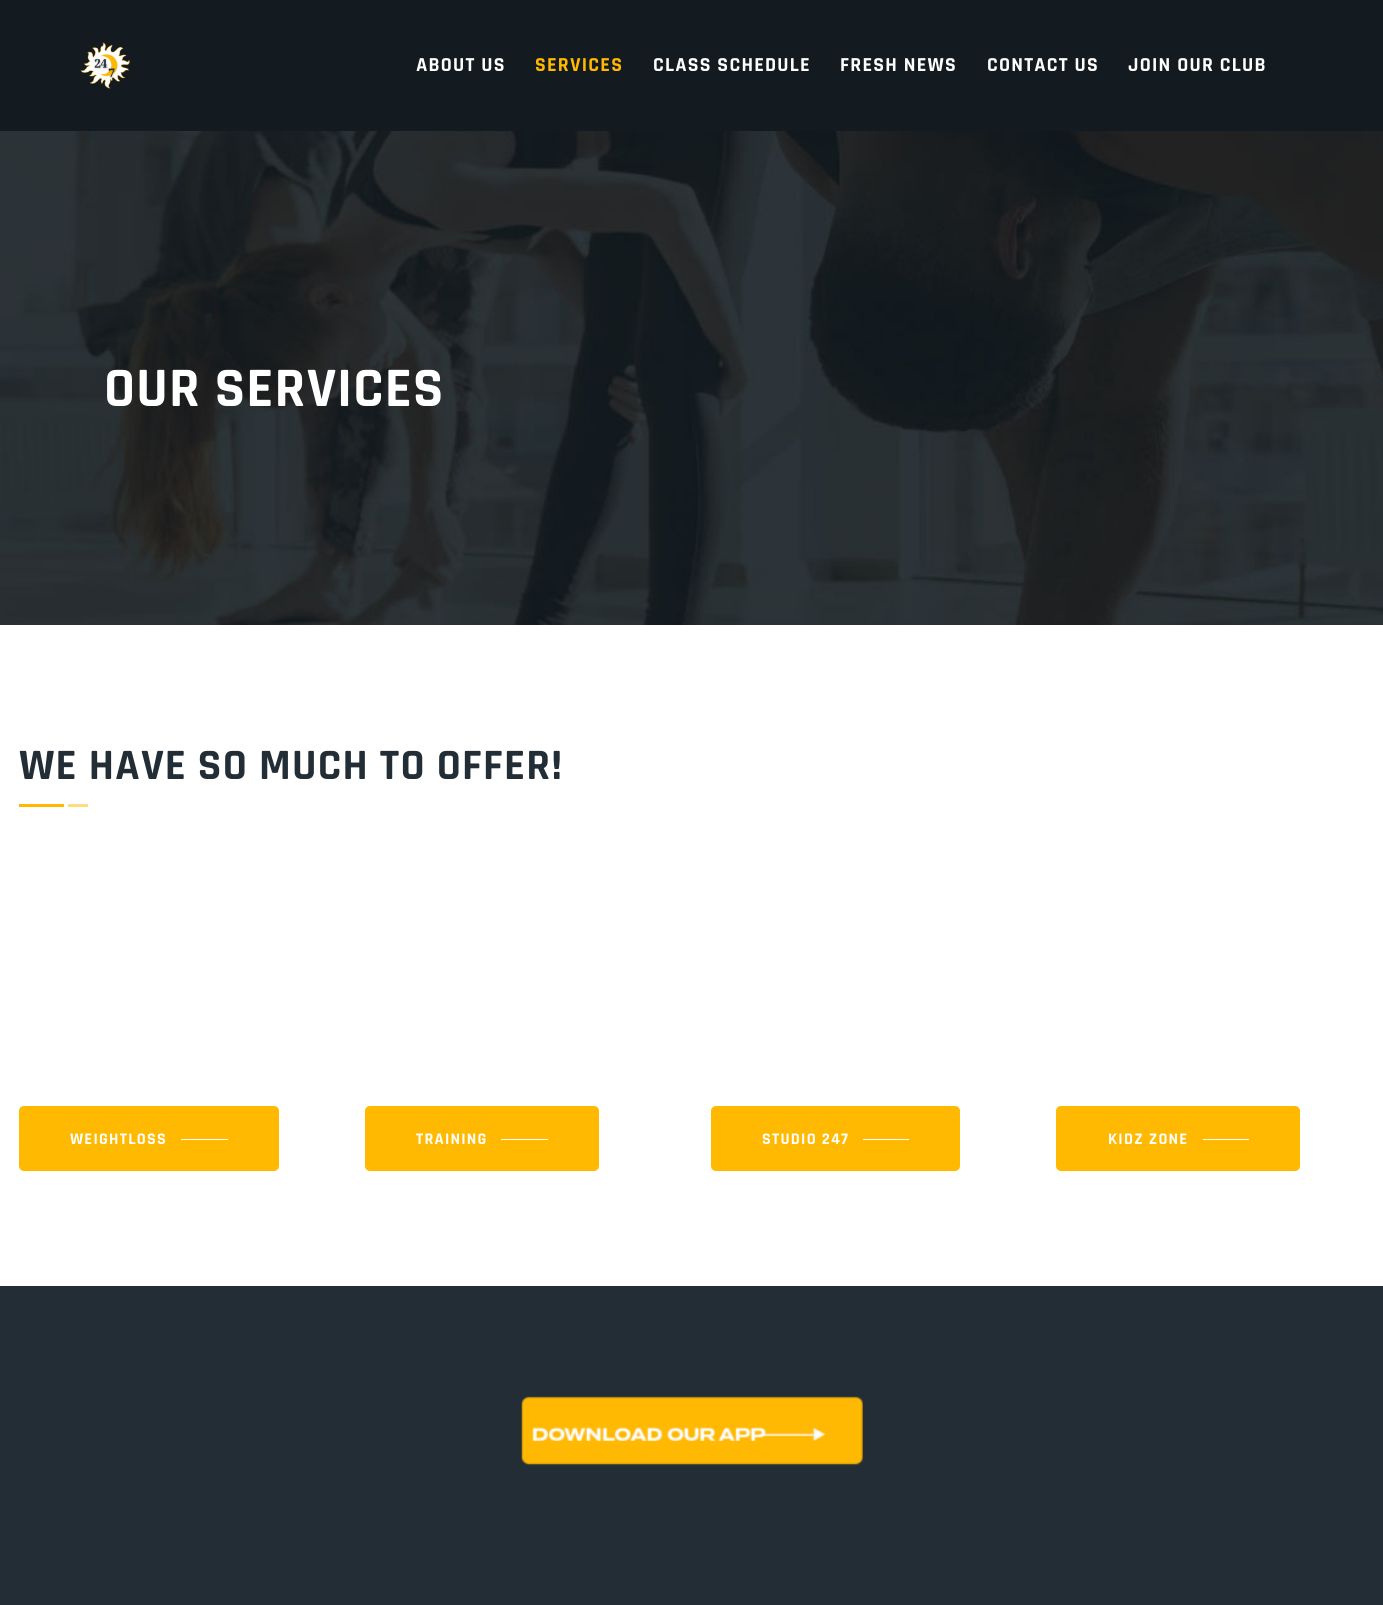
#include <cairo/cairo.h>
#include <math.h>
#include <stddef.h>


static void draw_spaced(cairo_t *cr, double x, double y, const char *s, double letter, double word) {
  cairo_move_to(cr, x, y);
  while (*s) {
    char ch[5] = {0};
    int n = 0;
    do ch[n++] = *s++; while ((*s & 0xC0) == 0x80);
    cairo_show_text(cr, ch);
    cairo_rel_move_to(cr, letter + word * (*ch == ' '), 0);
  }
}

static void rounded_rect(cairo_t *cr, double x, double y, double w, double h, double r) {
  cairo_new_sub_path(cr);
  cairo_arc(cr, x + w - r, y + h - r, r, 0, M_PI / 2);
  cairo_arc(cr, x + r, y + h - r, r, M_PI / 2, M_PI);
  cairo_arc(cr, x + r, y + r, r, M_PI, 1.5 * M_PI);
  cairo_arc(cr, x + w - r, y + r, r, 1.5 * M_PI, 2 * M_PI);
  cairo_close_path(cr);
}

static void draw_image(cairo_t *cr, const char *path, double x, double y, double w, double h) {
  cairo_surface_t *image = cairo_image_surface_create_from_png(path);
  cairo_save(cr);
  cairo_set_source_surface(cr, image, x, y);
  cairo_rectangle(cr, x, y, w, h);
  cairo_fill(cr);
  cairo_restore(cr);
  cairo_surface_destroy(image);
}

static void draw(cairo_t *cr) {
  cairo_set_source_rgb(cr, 1, 1, 1);
  cairo_paint(cr);
  cairo_set_source_rgb(cr, 20 / 255.0, 27 / 255.0, 32 / 255.0);
  cairo_rectangle(cr, 0, 0, 1383, 131);
  cairo_fill(cr);
  draw_image(cr, "images/1.png", 80, 42, 50, 47);
  draw_image(cr, "images/2.png", 0, 131, 1383, 494);
  cairo_set_source_rgb(cr, 1, 185 / 255.0, 1 / 255.0);
  cairo_rectangle(cr, 19, 804, 45, 3);
  cairo_fill(cr);
  cairo_set_source_rgb(cr, 1, 220 / 255.0, 128 / 255.0);
  cairo_rectangle(cr, 68, 804, 20, 3);
  cairo_fill(cr);
  cairo_set_source_rgb(cr, 1, 185 / 255.0, 1 / 255.0);
  rounded_rect(cr, 19, 1106, 260, 65, 5);
  cairo_fill(cr);
  cairo_set_source_rgb(cr, 1, 1, 1);
  cairo_rectangle(cr, 181, 1139, 47, 1);
  cairo_fill(cr);
  cairo_set_source_rgb(cr, 1, 185 / 255.0, 1 / 255.0);
  rounded_rect(cr, 365, 1106, 234, 65, 5);
  cairo_fill(cr);
  cairo_set_source_rgb(cr, 1, 1, 1);
  cairo_rectangle(cr, 501, 1139, 47, 1);
  cairo_fill(cr);
  cairo_set_source_rgb(cr, 1, 185 / 255.0, 1 / 255.0);
  rounded_rect(cr, 711, 1106, 249, 65, 5);
  cairo_fill(cr);
  cairo_set_source_rgb(cr, 1, 1, 1);
  cairo_rectangle(cr, 863, 1139, 46, 1);
  cairo_fill(cr);
  cairo_set_source_rgb(cr, 1, 185 / 255.0, 1 / 255.0);
  rounded_rect(cr, 1056, 1106, 244, 65, 5);
  cairo_fill(cr);
  cairo_set_source_rgb(cr, 1, 1, 1);
  cairo_rectangle(cr, 1203, 1139, 46, 1);
  cairo_fill(cr);
  cairo_set_source_rgb(cr, 34 / 255.0, 45 / 255.0, 53 / 255.0);
  cairo_rectangle(cr, 0, 1286, 1383, 319);
  cairo_fill(cr);
  draw_image(cr, "images/3.png", 521, 1396, 342, 70);
  cairo_select_font_face(cr, "Rajdhani", CAIRO_FONT_SLANT_NORMAL, CAIRO_FONT_WEIGHT_BOLD);
  cairo_set_font_size(cr, 20);
  cairo_set_source_rgb(cr, 1, 1, 1);
  draw_spaced(cr, 416, 71, "ABOUT US", 1.25, 0);
  cairo_set_source_rgb(cr, 1, 185 / 255.0, 1 / 255.0);
  draw_spaced(cr, 535, 71, "SERVICES", 1.25, 0);
  cairo_set_source_rgb(cr, 1, 1, 1);
  draw_spaced(cr, 653, 71, "CLASS SCHEDULE", 1.25, 0);
  draw_spaced(cr, 840, 71, "FRESH NEWS", 1.25, 0);
  draw_spaced(cr, 987, 71, "CONTACT US", 1.25, 0);
  draw_spaced(cr, 1128, 71, "JOIN OUR CLUB", 1.25, 0);
  cairo_set_font_size(cr, 56.25);
  draw_spaced(cr, 104, 406, "OUR SERVICES", 1.25, 0);
  cairo_set_font_size(cr, 43.75);
  cairo_set_source_rgb(cr, 34 / 255.0, 45 / 255.0, 53 / 255.0);
  draw_spaced(cr, 19, 779, "WE HAVE SO MUCH TO OFFER!", 1.25, 0);
  cairo_set_font_size(cr, 16.25);
  cairo_set_source_rgb(cr, 1, 1, 1);
  draw_spaced(cr, 70, 1144, "WEIGHTLOSS", 1.25, 0);
  draw_spaced(cr, 416, 1144, "TRAINING", 1.25, 0);
  draw_spaced(cr, 762, 1144, "STUDIO 247", 1.25, 0);
  draw_spaced(cr, 1108, 1144, "KIDZ ZONE", 1.25, 0);
}

int main(void) {
  cairo_surface_t *surface = cairo_image_surface_create(CAIRO_FORMAT_RGB24, 1383, 1605);
  cairo_t *cr = cairo_create(surface);
  cairo_font_options_t *options = cairo_font_options_create();
  cairo_font_options_set_hint_metrics(options, CAIRO_HINT_METRICS_OFF);
  cairo_font_options_set_hint_style(options, CAIRO_HINT_STYLE_NONE);
  cairo_set_font_options(cr, options);
  cairo_set_miter_limit(cr, 4);
  draw(cr);
  cairo_surface_write_to_png(surface, "out.png");
  cairo_font_options_destroy(options);
  cairo_destroy(cr);
  cairo_surface_destroy(surface);
  return 0;
}
